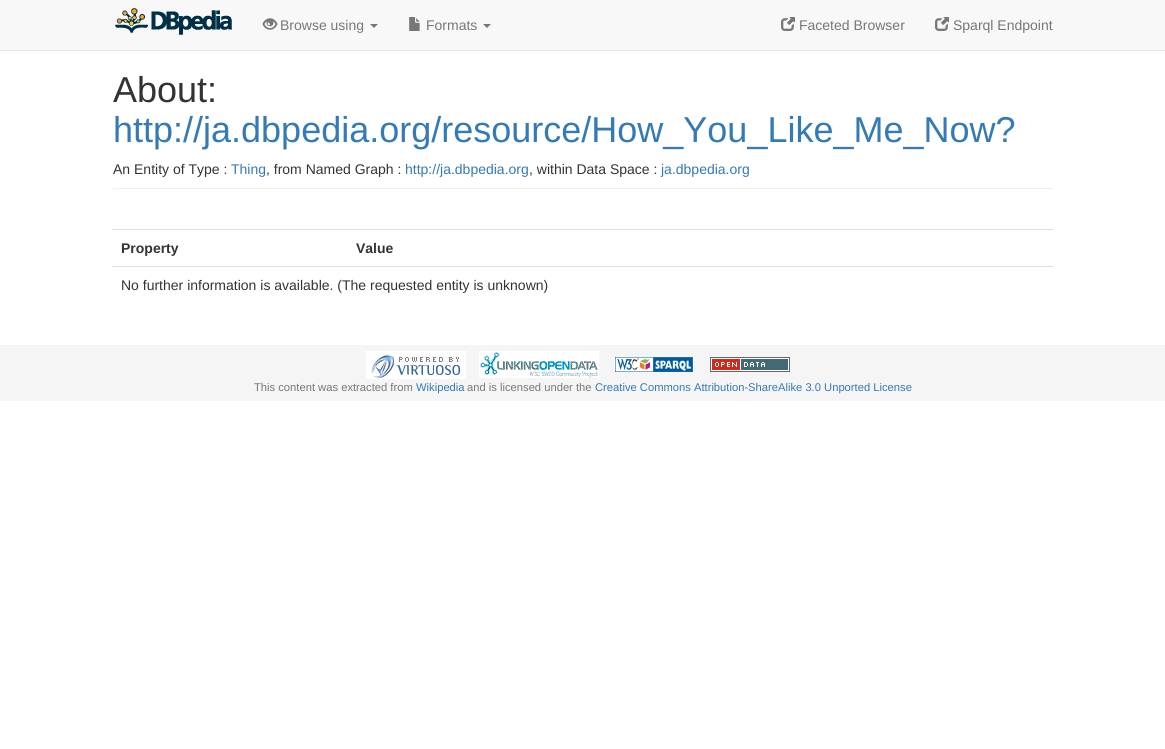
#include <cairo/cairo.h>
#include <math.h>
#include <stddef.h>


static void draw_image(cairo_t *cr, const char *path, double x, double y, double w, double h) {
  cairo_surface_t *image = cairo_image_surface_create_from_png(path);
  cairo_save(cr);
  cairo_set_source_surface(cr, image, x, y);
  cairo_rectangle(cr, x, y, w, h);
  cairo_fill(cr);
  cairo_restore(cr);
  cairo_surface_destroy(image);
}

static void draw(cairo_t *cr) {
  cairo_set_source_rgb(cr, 1, 1, 1);
  cairo_paint(cr);
  cairo_set_source_rgb(cr, 248 / 255.0, 248 / 255.0, 248 / 255.0);
  cairo_rectangle(cr, 0, 0, 1165, 50);
  cairo_fill(cr);
  cairo_set_source_rgb(cr, 231 / 255.0, 231 / 255.0, 231 / 255.0);
  cairo_rectangle(cr, 0, 50, 1165, 1);
  cairo_fill(cr);
  draw_image(cr, "images/1.png", 115, 8, 117, 27);
  draw_image(cr, "images/2.png", 262, 18, 16, 12);
  cairo_set_source_rgb(cr, 119 / 255.0, 119 / 255.0, 119 / 255.0);
  cairo_new_path(cr);
  cairo_move_to(cr, 370, 24);
  cairo_line_to(cr, 378, 24);
  cairo_line_to(cr, 374, 28);
  cairo_close_path(cr);
  cairo_fill(cr);
  draw_image(cr, "images/3.png", 409, 17, 11, 14);
  cairo_new_path(cr);
  cairo_move_to(cr, 483, 24);
  cairo_line_to(cr, 491, 24);
  cairo_line_to(cr, 487, 28);
  cairo_close_path(cr);
  cairo_fill(cr);
  draw_image(cr, "images/4.png", 781, 17, 14, 14);
  draw_image(cr, "images/4.png", 935, 17, 14, 14);
  cairo_set_source_rgb(cr, 238 / 255.0, 238 / 255.0, 238 / 255.0);
  cairo_rectangle(cr, 113, 188, 940, 1);
  cairo_fill(cr);
  cairo_set_source_rgb(cr, 221 / 255.0, 221 / 255.0, 221 / 255.0);
  cairo_rectangle(cr, 112, 229, 941, 1);
  cairo_fill(cr);
  cairo_rectangle(cr, 112, 266, 941, 1);
  cairo_fill(cr);
  cairo_set_source_rgb(cr, 245 / 255.0, 245 / 255.0, 245 / 255.0);
  cairo_rectangle(cr, 0, 345, 1165, 56);
  cairo_fill(cr);
  draw_image(cr, "images/5.png", 366, 351, 100, 28);
  draw_image(cr, "images/6.png", 479, 351, 120, 27);
  draw_image(cr, "images/7.png", 614, 357, 80, 15);
  draw_image(cr, "images/8.png", 710, 357, 80, 15);
  cairo_select_font_face(cr, "Liberation Sans", CAIRO_FONT_SLANT_NORMAL, CAIRO_FONT_WEIGHT_NORMAL);
  cairo_set_font_size(cr, 14);
  cairo_set_source_rgb(cr, 119 / 255.0, 119 / 255.0, 119 / 255.0);
  cairo_move_to(cr, 280, 30);
  cairo_show_text(cr, "Browse using");
  cairo_move_to(cr, 426, 30);
  cairo_show_text(cr, "Formats");
  cairo_move_to(cr, 799, 30);
  cairo_show_text(cr, "Faceted Browser");
  cairo_move_to(cr, 953, 30);
  cairo_show_text(cr, "Sparql Endpoint");
  cairo_set_font_size(cr, 36);
  cairo_set_source_rgb(cr, 51 / 255.0, 51 / 255.0, 51 / 255.0);
  cairo_move_to(cr, 113, 102);
  cairo_show_text(cr, "About:");
  cairo_set_source_rgb(cr, 51 / 255.0, 122 / 255.0, 183 / 255.0);
  cairo_move_to(cr, 113, 142);
  cairo_show_text(cr, "http://ja.dbpedia.org/resource/How_You_Like_Me_Now?");
  cairo_set_font_size(cr, 14);
  cairo_set_source_rgb(cr, 51 / 255.0, 51 / 255.0, 51 / 255.0);
  cairo_move_to(cr, 113, 174);
  cairo_show_text(cr, "An Entity of Type :");
  cairo_set_source_rgb(cr, 51 / 255.0, 122 / 255.0, 183 / 255.0);
  cairo_move_to(cr, 231, 174);
  cairo_show_text(cr, "Thing");
  cairo_set_source_rgb(cr, 51 / 255.0, 51 / 255.0, 51 / 255.0);
  cairo_move_to(cr, 266, 174);
  cairo_show_text(cr, ", from Named Graph :");
  cairo_set_source_rgb(cr, 51 / 255.0, 122 / 255.0, 183 / 255.0);
  cairo_move_to(cr, 405, 174);
  cairo_show_text(cr, "http://ja.dbpedia.org");
  cairo_set_source_rgb(cr, 51 / 255.0, 51 / 255.0, 51 / 255.0);
  cairo_move_to(cr, 529, 174);
  cairo_show_text(cr, ", within Data Space :");
  cairo_set_source_rgb(cr, 51 / 255.0, 122 / 255.0, 183 / 255.0);
  cairo_move_to(cr, 661, 174);
  cairo_show_text(cr, "ja.dbpedia.org");
  cairo_select_font_face(cr, "Liberation Sans", CAIRO_FONT_SLANT_NORMAL, CAIRO_FONT_WEIGHT_BOLD);
  cairo_set_source_rgb(cr, 51 / 255.0, 51 / 255.0, 51 / 255.0);
  cairo_move_to(cr, 121, 253);
  cairo_show_text(cr, "Property");
  cairo_move_to(cr, 356, 253);
  cairo_show_text(cr, "Value");
  cairo_select_font_face(cr, "Liberation Sans", CAIRO_FONT_SLANT_NORMAL, CAIRO_FONT_WEIGHT_NORMAL);
  cairo_move_to(cr, 121, 290);
  cairo_show_text(cr, "No further information is available. (The requested entity is unknown)");
  cairo_set_font_size(cr, 11.2);
  cairo_set_source_rgb(cr, 119 / 255.0, 119 / 255.0, 119 / 255.0);
  cairo_move_to(cr, 254, 391);
  cairo_show_text(cr, "This content was extracted from");
  cairo_set_source_rgb(cr, 51 / 255.0, 122 / 255.0, 183 / 255.0);
  cairo_move_to(cr, 416, 391);
  cairo_show_text(cr, "Wikipedia");
  cairo_set_source_rgb(cr, 119 / 255.0, 119 / 255.0, 119 / 255.0);
  cairo_move_to(cr, 467, 391);
  cairo_show_text(cr, "and is licensed under the");
  cairo_set_source_rgb(cr, 51 / 255.0, 122 / 255.0, 183 / 255.0);
  cairo_move_to(cr, 595, 391);
  cairo_show_text(cr, "Creative Commons Attribution-ShareAlike 3.0 Unported License");
}

int main(void) {
  cairo_surface_t *surface = cairo_image_surface_create(CAIRO_FORMAT_RGB24, 1165, 749);
  cairo_t *cr = cairo_create(surface);
  cairo_font_options_t *options = cairo_font_options_create();
  cairo_font_options_set_hint_metrics(options, CAIRO_HINT_METRICS_OFF);
  cairo_font_options_set_hint_style(options, CAIRO_HINT_STYLE_NONE);
  cairo_set_font_options(cr, options);
  cairo_set_miter_limit(cr, 4);
  draw(cr);
  cairo_surface_write_to_png(surface, "out.png");
  cairo_font_options_destroy(options);
  cairo_destroy(cr);
  cairo_surface_destroy(surface);
  return 0;
}
